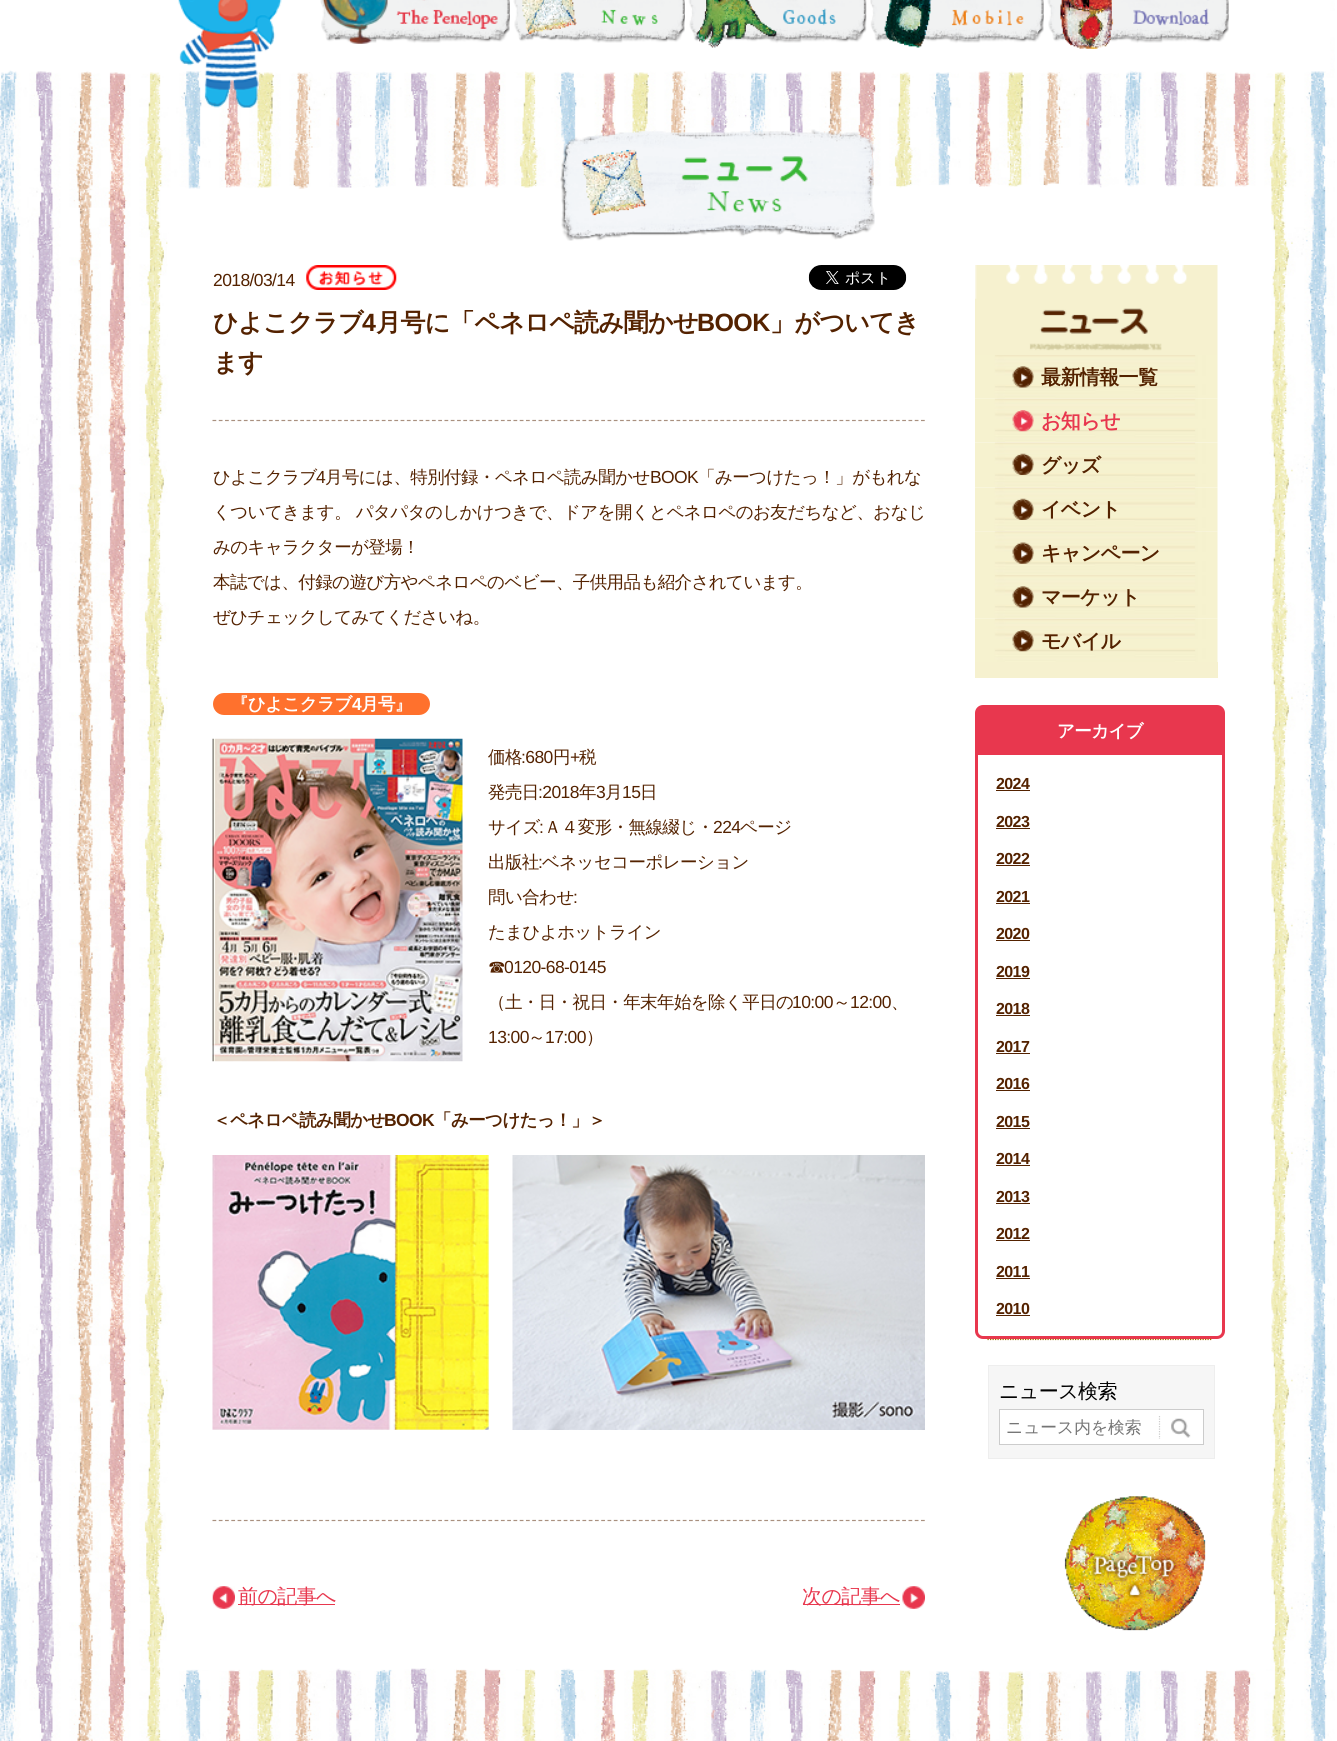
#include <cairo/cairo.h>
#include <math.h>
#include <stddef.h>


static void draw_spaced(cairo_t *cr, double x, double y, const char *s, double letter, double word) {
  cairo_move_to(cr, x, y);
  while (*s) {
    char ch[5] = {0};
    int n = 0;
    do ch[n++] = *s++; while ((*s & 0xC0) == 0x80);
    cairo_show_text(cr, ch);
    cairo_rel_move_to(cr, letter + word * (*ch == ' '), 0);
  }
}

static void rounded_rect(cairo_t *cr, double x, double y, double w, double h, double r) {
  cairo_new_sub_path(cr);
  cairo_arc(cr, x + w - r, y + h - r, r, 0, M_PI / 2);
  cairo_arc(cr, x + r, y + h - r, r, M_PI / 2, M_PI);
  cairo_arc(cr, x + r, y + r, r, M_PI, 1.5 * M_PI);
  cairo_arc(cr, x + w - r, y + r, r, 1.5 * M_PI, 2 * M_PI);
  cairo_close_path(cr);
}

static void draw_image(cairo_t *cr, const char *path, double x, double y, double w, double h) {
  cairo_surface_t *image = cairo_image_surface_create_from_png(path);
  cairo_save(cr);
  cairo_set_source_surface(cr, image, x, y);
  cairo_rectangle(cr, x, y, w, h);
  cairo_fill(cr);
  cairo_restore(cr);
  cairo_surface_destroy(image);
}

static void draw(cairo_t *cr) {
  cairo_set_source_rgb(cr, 1, 1, 1);
  cairo_paint(cr);
  draw_image(cr, "images/1.png", 0, 0, 1335, 1741);
  draw_image(cr, "images/2.png", 0, 0, 1330, 76);
  draw_image(cr, "images/3.png", 178, 0, 104, 108);
  draw_image(cr, "images/4.png", 320, 0, 190, 44);
  draw_image(cr, "images/5.png", 513, 0, 172, 43);
  draw_image(cr, "images/6.png", 688, 0, 179, 48);
  draw_image(cr, "images/7.png", 870, 0, 174, 48);
  draw_image(cr, "images/8.png", 1047, 0, 182, 49);
  draw_image(cr, "images/10.png", 167, 182, 1106, 1492);
  draw_image(cr, "images/9.png", 560, 129, 315, 112);
  draw_image(cr, "images/11.png", 165, 265, 1110, 1345);
  draw_image(cr, "images/12.png", 306, 265, 91, 25);
  draw_image(cr, "images/13.png", 808, 265, 99, 25);
  cairo_new_path(cr);
  cairo_move_to(cr, 212.5, 420.5);
  cairo_line_to(cr, 925, 420.5);
  cairo_set_source_rgb(cr, 169 / 255.0, 144 / 255.0, 127 / 255.0);
  cairo_set_line_width(cr, 1.2);
  cairo_set_dash(cr, (double[]){3.75, 2.52}, 2, 0);
  cairo_stroke(cr);
  cairo_new_path(cr);
  cairo_move_to(cr, 212.5, 1520.5);
  cairo_line_to(cr, 925, 1520.5);
  cairo_stroke(cr);
  cairo_set_source_rgb(cr, 1, 113 / 255.0, 45 / 255.0);
  rounded_rect(cr, 213, 693, 217, 22, 11);
  cairo_fill(cr);
  draw_image(cr, "images/14.png", 212, 738, 251, 324);
  draw_image(cr, "images/15.png", 212, 1155, 277, 275);
  draw_image(cr, "images/16.png", 512, 1155, 413, 275);
  draw_image(cr, "images/17.png", 212, 1586, 23, 23);
  cairo_set_source_rgb(cr, 232 / 255.0, 55 / 255.0, 78 / 255.0);
  cairo_rectangle(cr, 238, 1604, 97, 1);
  cairo_fill(cr);
  draw_image(cr, "images/18.png", 902, 1586, 23, 23);
  cairo_rectangle(cr, 803, 1604, 97, 1);
  cairo_fill(cr);
  cairo_set_source_rgb(cr, 246 / 255.0, 241 / 255.0, 207 / 255.0);
  cairo_rectangle(cr, 975, 662, 243, 16);
  cairo_fill(cr);
  draw_image(cr, "images/19.png", 975, 265, 243, 90);
  draw_image(cr, "images/20.png", 975, 355, 243, 44);
  draw_image(cr, "images/21.png", 1012, 366, 22, 22);
  draw_image(cr, "images/22.png", 975, 398, 243, 45);
  draw_image(cr, "images/23.png", 1012, 410, 22, 22);
  draw_image(cr, "images/24.png", 975, 442, 243, 46);
  draw_image(cr, "images/25.png", 1012, 453, 22, 22);
  draw_image(cr, "images/26.png", 975, 487, 243, 45);
  draw_image(cr, "images/27.png", 1012, 498, 22, 22);
  draw_image(cr, "images/28.png", 975, 531, 243, 44);
  draw_image(cr, "images/29.png", 1012, 542, 22, 22);
  draw_image(cr, "images/20.png", 975, 575, 243, 44);
  draw_image(cr, "images/30.png", 1012, 586, 22, 22);
  draw_image(cr, "images/31.png", 975, 618, 243, 44);
  draw_image(cr, "images/32.png", 1012, 630, 22, 22);
  rounded_rect(cr, 976.5, 706.5, 247, 631, 6.5);
  cairo_set_source_rgb(cr, 232 / 255.0, 55 / 255.0, 78 / 255.0);
  cairo_set_line_width(cr, 3);
  cairo_set_dash(cr, NULL, 0, 0);
  cairo_stroke(cr);
  cairo_rectangle(cr, 978, 708, 244, 47);
  cairo_fill(cr);
  cairo_set_source_rgb(cr, 84 / 255.0, 34 / 255.0, 0);
  cairo_rectangle(cr, 996, 790, 34, 1);
  cairo_fill(cr);
  cairo_rectangle(cr, 996, 828, 34, 1);
  cairo_fill(cr);
  cairo_rectangle(cr, 996, 865, 34, 1);
  cairo_fill(cr);
  cairo_rectangle(cr, 996, 903, 34, 1);
  cairo_fill(cr);
  cairo_rectangle(cr, 996, 940, 34, 1);
  cairo_fill(cr);
  cairo_rectangle(cr, 996, 978, 34, 1);
  cairo_fill(cr);
  cairo_rectangle(cr, 996, 1015, 34, 1);
  cairo_fill(cr);
  cairo_rectangle(cr, 996, 1053, 34, 1);
  cairo_fill(cr);
  cairo_rectangle(cr, 996, 1090, 34, 1);
  cairo_fill(cr);
  cairo_rectangle(cr, 996, 1128, 34, 1);
  cairo_fill(cr);
  cairo_rectangle(cr, 996, 1165, 34, 1);
  cairo_fill(cr);
  cairo_rectangle(cr, 996, 1203, 34, 1);
  cairo_fill(cr);
  cairo_rectangle(cr, 996, 1240, 34, 1);
  cairo_fill(cr);
  cairo_rectangle(cr, 996, 1278, 34, 1);
  cairo_fill(cr);
  cairo_rectangle(cr, 996, 1315, 34, 1);
  cairo_fill(cr);
  cairo_new_path(cr);
  cairo_move_to(cr, 987.5, 1339.5);
  cairo_line_to(cr, 1212.5, 1339.5);
  cairo_set_source_rgb(cr, 162 / 255.0, 110 / 255.0, 0);
  cairo_set_line_width(cr, 1.2);
  cairo_set_dash(cr, (double[]){1.25, 1.25}, 2, 0);
  cairo_stroke(cr);
  cairo_set_source_rgb(cr, 246 / 255.0, 246 / 255.0, 246 / 255.0);
  cairo_rectangle(cr, 988.5, 1365.5, 226, 93);
  cairo_fill_preserve(cr);
  cairo_set_source_rgb(cr, 238 / 255.0, 238 / 255.0, 238 / 255.0);
  cairo_set_line_width(cr, 1);
  cairo_set_dash(cr, NULL, 0, 0);
  cairo_stroke(cr);
  cairo_set_source_rgb(cr, 1, 1, 1);
  cairo_rectangle(cr, 999.5, 1409.5, 204, 35);
  cairo_fill_preserve(cr);
  cairo_set_source_rgb(cr, 204 / 255.0, 204 / 255.0, 204 / 255.0);
  cairo_stroke(cr);
  cairo_new_path(cr);
  cairo_move_to(cr, 1159.5, 1416);
  cairo_line_to(cr, 1159.5, 1439);
  cairo_set_line_width(cr, 1.2);
  cairo_set_dash(cr, (double[]){1.25, 1.25}, 2, 0);
  cairo_stroke(cr);
  draw_image(cr, "images/33.png", 1171, 1418, 20, 20);
  draw_image(cr, "images/34.png", 1064, 1496, 142, 135);
  cairo_select_font_face(cr, "Liberation Sans", CAIRO_FONT_SLANT_NORMAL, CAIRO_FONT_WEIGHT_NORMAL);
  cairo_set_font_size(cr, 17.5);
  cairo_set_source_rgb(cr, 84 / 255.0, 34 / 255.0, 0);
  draw_spaced(cr, 213, 286, "2018/03/14", -0.6, 0);
  cairo_select_font_face(cr, "WenQuanYi Zen Hei", CAIRO_FONT_SLANT_NORMAL, CAIRO_FONT_WEIGHT_BOLD);
  cairo_set_font_size(cr, 25);
  draw_spaced(cr, 213, 331, "ひよこクラブ", -0.6, 0);
  cairo_select_font_face(cr, "Liberation Sans", CAIRO_FONT_SLANT_NORMAL, CAIRO_FONT_WEIGHT_BOLD);
  draw_spaced(cr, 362, 331, "4", -0.6, 0);
  cairo_select_font_face(cr, "WenQuanYi Zen Hei", CAIRO_FONT_SLANT_NORMAL, CAIRO_FONT_WEIGHT_BOLD);
  draw_spaced(cr, 376, 331, "月号に「ペネロペ読み聞かせ", -0.6, 0);
  cairo_select_font_face(cr, "Liberation Sans", CAIRO_FONT_SLANT_NORMAL, CAIRO_FONT_WEIGHT_BOLD);
  draw_spaced(cr, 697, 331, "BOOK", -0.6, 0);
  cairo_select_font_face(cr, "WenQuanYi Zen Hei", CAIRO_FONT_SLANT_NORMAL, CAIRO_FONT_WEIGHT_BOLD);
  draw_spaced(cr, 770, 331, "」がついてき", -0.6, 0);
  draw_spaced(cr, 213, 371, "ます", -0.6, 0);
  cairo_select_font_face(cr, "WenQuanYi Zen Hei Medium", CAIRO_FONT_SLANT_NORMAL, CAIRO_FONT_WEIGHT_NORMAL);
  cairo_set_font_size(cr, 17.5);
  draw_spaced(cr, 213, 483, "ひよこクラブ", -0.6, 0);
  cairo_select_font_face(cr, "Liberation Sans", CAIRO_FONT_SLANT_NORMAL, CAIRO_FONT_WEIGHT_NORMAL);
  draw_spaced(cr, 316, 483, "4", -0.6, 0);
  cairo_select_font_face(cr, "WenQuanYi Zen Hei Medium", CAIRO_FONT_SLANT_NORMAL, CAIRO_FONT_WEIGHT_NORMAL);
  draw_spaced(cr, 325, 483, "月号には、特別付録・ペネロペ読み聞かせ", -0.6, 0);
  cairo_select_font_face(cr, "Liberation Sans", CAIRO_FONT_SLANT_NORMAL, CAIRO_FONT_WEIGHT_NORMAL);
  draw_spaced(cr, 650, 483, "BOOK", -0.6, 0);
  cairo_select_font_face(cr, "WenQuanYi Zen Hei Medium", CAIRO_FONT_SLANT_NORMAL, CAIRO_FONT_WEIGHT_NORMAL);
  draw_spaced(cr, 698, 483, "「みーつけたっ！」がもれな", -0.6, 0);
  draw_spaced(cr, 213, 518, "くついてきます。 パタパタのしかけつきで、ドアを開くとペネロペのお友だちなど、おなじ", -0.6, 0);
  draw_spaced(cr, 213, 553, "みのキャラクターが登場！", -0.6, 0);
  draw_spaced(cr, 213, 588, "本誌では、付録の遊び方やペネロペのベビー、子供用品も紹介されています。", -0.6, 0);
  draw_spaced(cr, 213, 623, "ぜひチェックしてみてくださいね。", -0.6, 0);
  cairo_select_font_face(cr, "WenQuanYi Zen Hei", CAIRO_FONT_SLANT_NORMAL, CAIRO_FONT_WEIGHT_BOLD);
  cairo_set_source_rgb(cr, 1, 1, 1);
  draw_spaced(cr, 231, 710, "『ひよこクラブ", -0.6, 0);
  cairo_select_font_face(cr, "Liberation Sans", CAIRO_FONT_SLANT_NORMAL, CAIRO_FONT_WEIGHT_BOLD);
  draw_spaced(cr, 352, 710, "4", -0.6, 0);
  cairo_select_font_face(cr, "WenQuanYi Zen Hei", CAIRO_FONT_SLANT_NORMAL, CAIRO_FONT_WEIGHT_BOLD);
  draw_spaced(cr, 361, 710, "月号』", -0.6, 0);
  cairo_select_font_face(cr, "WenQuanYi Zen Hei Medium", CAIRO_FONT_SLANT_NORMAL, CAIRO_FONT_WEIGHT_NORMAL);
  cairo_set_source_rgb(cr, 84 / 255.0, 34 / 255.0, 0);
  draw_spaced(cr, 488, 763, "価格", -0.6, 0);
  cairo_select_font_face(cr, "Liberation Sans", CAIRO_FONT_SLANT_NORMAL, CAIRO_FONT_WEIGHT_NORMAL);
  draw_spaced(cr, 521, 763, ":680", -0.6, 0);
  cairo_select_font_face(cr, "WenQuanYi Zen Hei Medium", CAIRO_FONT_SLANT_NORMAL, CAIRO_FONT_WEIGHT_NORMAL);
  draw_spaced(cr, 553, 763, "円", -0.6, 0);
  cairo_select_font_face(cr, "Liberation Sans", CAIRO_FONT_SLANT_NORMAL, CAIRO_FONT_WEIGHT_NORMAL);
  draw_spaced(cr, 570, 763, "+", -0.6, 0);
  cairo_select_font_face(cr, "WenQuanYi Zen Hei Medium", CAIRO_FONT_SLANT_NORMAL, CAIRO_FONT_WEIGHT_NORMAL);
  draw_spaced(cr, 579, 763, "税", -0.6, 0);
  draw_spaced(cr, 488, 798, "発売日", -0.6, 0);
  cairo_select_font_face(cr, "Liberation Sans", CAIRO_FONT_SLANT_NORMAL, CAIRO_FONT_WEIGHT_NORMAL);
  draw_spaced(cr, 538, 798, ":2018", -0.6, 0);
  cairo_select_font_face(cr, "WenQuanYi Zen Hei Medium", CAIRO_FONT_SLANT_NORMAL, CAIRO_FONT_WEIGHT_NORMAL);
  draw_spaced(cr, 579, 798, "年", -0.6, 0);
  cairo_select_font_face(cr, "Liberation Sans", CAIRO_FONT_SLANT_NORMAL, CAIRO_FONT_WEIGHT_NORMAL);
  draw_spaced(cr, 596, 798, "3", -0.6, 0);
  cairo_select_font_face(cr, "WenQuanYi Zen Hei Medium", CAIRO_FONT_SLANT_NORMAL, CAIRO_FONT_WEIGHT_NORMAL);
  draw_spaced(cr, 605, 798, "月", -0.6, 0);
  cairo_select_font_face(cr, "Liberation Sans", CAIRO_FONT_SLANT_NORMAL, CAIRO_FONT_WEIGHT_NORMAL);
  draw_spaced(cr, 622, 798, "15", -0.6, 0);
  cairo_select_font_face(cr, "WenQuanYi Zen Hei Medium", CAIRO_FONT_SLANT_NORMAL, CAIRO_FONT_WEIGHT_NORMAL);
  draw_spaced(cr, 640, 798, "日", -0.6, 0);
  draw_spaced(cr, 488, 833, "サイズ", -0.6, 0);
  cairo_select_font_face(cr, "Liberation Sans", CAIRO_FONT_SLANT_NORMAL, CAIRO_FONT_WEIGHT_NORMAL);
  draw_spaced(cr, 539, 833, ":", -0.6, 0);
  cairo_select_font_face(cr, "WenQuanYi Zen Hei Medium", CAIRO_FONT_SLANT_NORMAL, CAIRO_FONT_WEIGHT_NORMAL);
  draw_spaced(cr, 544, 833, "Ａ４変形・無線綴じ・", -0.6, 0);
  cairo_select_font_face(cr, "Liberation Sans", CAIRO_FONT_SLANT_NORMAL, CAIRO_FONT_WEIGHT_NORMAL);
  draw_spaced(cr, 713, 833, "224", -0.6, 0);
  cairo_select_font_face(cr, "WenQuanYi Zen Hei Medium", CAIRO_FONT_SLANT_NORMAL, CAIRO_FONT_WEIGHT_NORMAL);
  draw_spaced(cr, 740, 833, "ページ", -0.6, 0);
  draw_spaced(cr, 488, 868, "出版社", -0.6, 0);
  cairo_select_font_face(cr, "Liberation Sans", CAIRO_FONT_SLANT_NORMAL, CAIRO_FONT_WEIGHT_NORMAL);
  draw_spaced(cr, 538, 868, ":", -0.6, 0);
  cairo_select_font_face(cr, "WenQuanYi Zen Hei Medium", CAIRO_FONT_SLANT_NORMAL, CAIRO_FONT_WEIGHT_NORMAL);
  draw_spaced(cr, 542, 868, "ベネッセコーポレーション", -0.6, 0);
  draw_spaced(cr, 488, 903, "問い合わせ", -0.6, 0);
  cairo_select_font_face(cr, "Liberation Sans", CAIRO_FONT_SLANT_NORMAL, CAIRO_FONT_WEIGHT_NORMAL);
  draw_spaced(cr, 573, 903, ":", -0.6, 0);
  cairo_select_font_face(cr, "WenQuanYi Zen Hei Medium", CAIRO_FONT_SLANT_NORMAL, CAIRO_FONT_WEIGHT_NORMAL);
  draw_spaced(cr, 488, 938, "たまひよホットライン", -0.6, 0);
  draw_spaced(cr, 488, 973, "☎", -0.6, 0);
  cairo_select_font_face(cr, "Liberation Sans", CAIRO_FONT_SLANT_NORMAL, CAIRO_FONT_WEIGHT_NORMAL);
  draw_spaced(cr, 504, 973, "0120-68-0145", -0.6, 0);
  cairo_select_font_face(cr, "WenQuanYi Zen Hei Medium", CAIRO_FONT_SLANT_NORMAL, CAIRO_FONT_WEIGHT_NORMAL);
  draw_spaced(cr, 488, 1008, "（土・日・祝日・年末年始を除く平日の", -0.6, 0);
  cairo_select_font_face(cr, "Liberation Sans", CAIRO_FONT_SLANT_NORMAL, CAIRO_FONT_WEIGHT_NORMAL);
  draw_spaced(cr, 792, 1008, "10:00", -0.6, 0);
  cairo_select_font_face(cr, "WenQuanYi Zen Hei Medium", CAIRO_FONT_SLANT_NORMAL, CAIRO_FONT_WEIGHT_NORMAL);
  draw_spaced(cr, 833, 1008, "～", -0.6, 0);
  cairo_select_font_face(cr, "Liberation Sans", CAIRO_FONT_SLANT_NORMAL, CAIRO_FONT_WEIGHT_NORMAL);
  draw_spaced(cr, 850, 1008, "12:00", -0.6, 0);
  cairo_select_font_face(cr, "WenQuanYi Zen Hei Medium", CAIRO_FONT_SLANT_NORMAL, CAIRO_FONT_WEIGHT_NORMAL);
  draw_spaced(cr, 891, 1008, "、", -0.6, 0);
  cairo_select_font_face(cr, "Liberation Sans", CAIRO_FONT_SLANT_NORMAL, CAIRO_FONT_WEIGHT_NORMAL);
  draw_spaced(cr, 488, 1043, "13:00", -0.6, 0);
  cairo_select_font_face(cr, "WenQuanYi Zen Hei Medium", CAIRO_FONT_SLANT_NORMAL, CAIRO_FONT_WEIGHT_NORMAL);
  draw_spaced(cr, 528, 1043, "～", -0.6, 0);
  cairo_select_font_face(cr, "Liberation Sans", CAIRO_FONT_SLANT_NORMAL, CAIRO_FONT_WEIGHT_NORMAL);
  draw_spaced(cr, 545, 1043, "17:00", -0.6, 0);
  cairo_select_font_face(cr, "WenQuanYi Zen Hei Medium", CAIRO_FONT_SLANT_NORMAL, CAIRO_FONT_WEIGHT_NORMAL);
  draw_spaced(cr, 586, 1043, "）", -0.6, 0);
  cairo_select_font_face(cr, "WenQuanYi Zen Hei", CAIRO_FONT_SLANT_NORMAL, CAIRO_FONT_WEIGHT_BOLD);
  draw_spaced(cr, 213, 1126, "＜ペネロペ読み聞かせ", -0.6, 0);
  cairo_select_font_face(cr, "Liberation Sans", CAIRO_FONT_SLANT_NORMAL, CAIRO_FONT_WEIGHT_BOLD);
  draw_spaced(cr, 384, 1126, "BOOK", -0.6, 0);
  cairo_select_font_face(cr, "WenQuanYi Zen Hei", CAIRO_FONT_SLANT_NORMAL, CAIRO_FONT_WEIGHT_BOLD);
  draw_spaced(cr, 434, 1126, "「みーつけたっ！」＞", -0.6, 0);
  cairo_select_font_face(cr, "WenQuanYi Zen Hei Medium", CAIRO_FONT_SLANT_NORMAL, CAIRO_FONT_WEIGHT_NORMAL);
  cairo_set_font_size(cr, 20);
  cairo_set_source_rgb(cr, 232 / 255.0, 55 / 255.0, 78 / 255.0);
  draw_spaced(cr, 238, 1603, "前の記事へ", -0.6, 0);
  draw_spaced(cr, 802, 1603, "次の記事へ", -0.6, 0);
  cairo_select_font_face(cr, "WenQuanYi Zen Hei", CAIRO_FONT_SLANT_NORMAL, CAIRO_FONT_WEIGHT_BOLD);
  cairo_set_source_rgb(cr, 84 / 255.0, 34 / 255.0, 0);
  draw_spaced(cr, 1041, 384, "最新情報一覧", -0.6, 0);
  cairo_set_source_rgb(cr, 232 / 255.0, 55 / 255.0, 78 / 255.0);
  draw_spaced(cr, 1041, 428, "お知らせ", -0.6, 0);
  cairo_set_source_rgb(cr, 84 / 255.0, 34 / 255.0, 0);
  draw_spaced(cr, 1041, 472, "グッズ", -0.6, 0);
  draw_spaced(cr, 1041, 516, "イベント", -0.6, 0);
  draw_spaced(cr, 1041, 560, "キャンペーン", -0.6, 0);
  draw_spaced(cr, 1041, 604, "マーケット", -0.6, 0);
  draw_spaced(cr, 1041, 648, "モバイル", -0.6, 0);
  cairo_set_font_size(cr, 17.5);
  cairo_set_source_rgb(cr, 1, 1, 1);
  draw_spaced(cr, 1057, 737, "アーカイブ", -0.6, 0);
  cairo_select_font_face(cr, "Liberation Sans", CAIRO_FONT_SLANT_NORMAL, CAIRO_FONT_WEIGHT_BOLD);
  cairo_set_font_size(cr, 16);
  cairo_set_source_rgb(cr, 84 / 255.0, 34 / 255.0, 0);
  draw_spaced(cr, 996, 789, "2024", -0.6, 0);
  draw_spaced(cr, 996, 827, "2023", -0.6, 0);
  draw_spaced(cr, 996, 864, "2022", -0.6, 0);
  draw_spaced(cr, 996, 902, "2021", -0.6, 0);
  draw_spaced(cr, 996, 939, "2020", -0.6, 0);
  draw_spaced(cr, 996, 977, "2019", -0.6, 0);
  draw_spaced(cr, 996, 1014, "2018", -0.6, 0);
  draw_spaced(cr, 996, 1052, "2017", -0.6, 0);
  draw_spaced(cr, 996, 1089, "2016", -0.6, 0);
  draw_spaced(cr, 996, 1127, "2015", -0.6, 0);
  draw_spaced(cr, 996, 1164, "2014", -0.6, 0);
  draw_spaced(cr, 996, 1202, "2013", -0.6, 0);
  draw_spaced(cr, 996, 1239, "2012", -0.6, 0);
  draw_spaced(cr, 996, 1277, "2011", -0.6, 0);
  draw_spaced(cr, 996, 1314, "2010", -0.6, 0);
  cairo_select_font_face(cr, "WenQuanYi Zen Hei Medium", CAIRO_FONT_SLANT_NORMAL, CAIRO_FONT_WEIGHT_NORMAL);
  cairo_set_font_size(cr, 20);
  cairo_set_source_rgb(cr, 0, 0, 0);
  draw_spaced(cr, 999, 1398, "ニュース検索", -0.6, 0);
  cairo_set_font_size(cr, 16.75);
  cairo_set_source_rgb(cr, 117 / 255.0, 117 / 255.0, 117 / 255.0);
  cairo_move_to(cr, 1006, 1433);
  cairo_show_text(cr, "ニュース内を検索");
}

int main(void) {
  cairo_surface_t *surface = cairo_image_surface_create(CAIRO_FORMAT_RGB24, 1337, 1741);
  cairo_t *cr = cairo_create(surface);
  cairo_font_options_t *options = cairo_font_options_create();
  cairo_font_options_set_hint_metrics(options, CAIRO_HINT_METRICS_OFF);
  cairo_font_options_set_hint_style(options, CAIRO_HINT_STYLE_NONE);
  cairo_set_font_options(cr, options);
  cairo_set_miter_limit(cr, 4);
  draw(cr);
  cairo_surface_write_to_png(surface, "out.png");
  cairo_font_options_destroy(options);
  cairo_destroy(cr);
  cairo_surface_destroy(surface);
  return 0;
}
